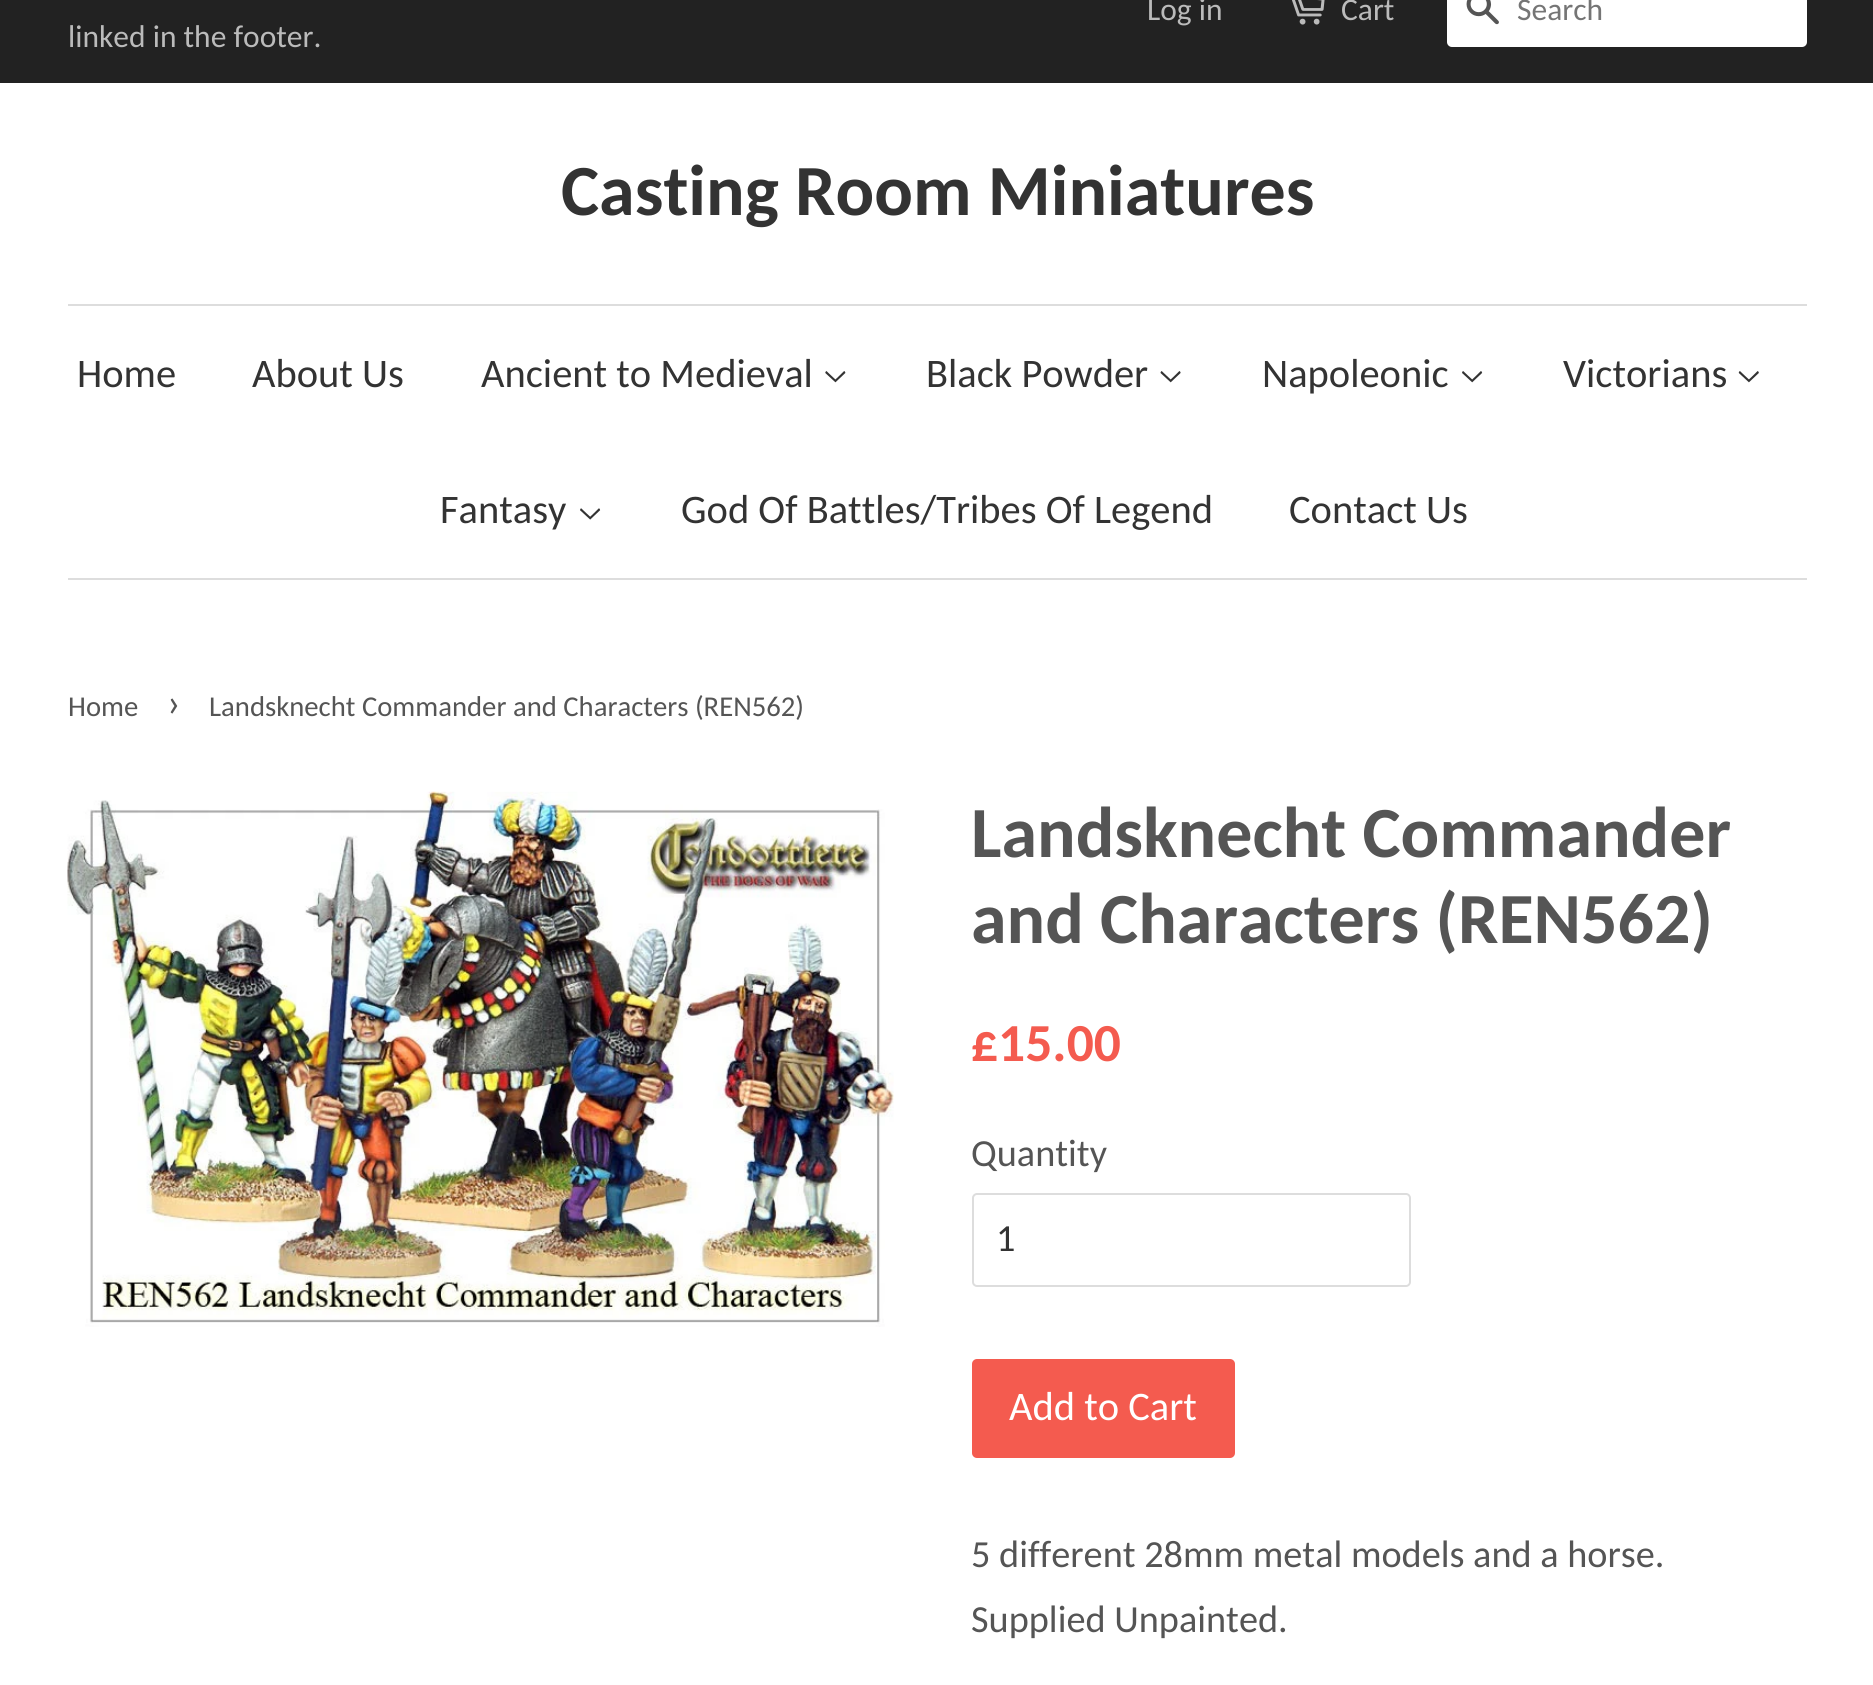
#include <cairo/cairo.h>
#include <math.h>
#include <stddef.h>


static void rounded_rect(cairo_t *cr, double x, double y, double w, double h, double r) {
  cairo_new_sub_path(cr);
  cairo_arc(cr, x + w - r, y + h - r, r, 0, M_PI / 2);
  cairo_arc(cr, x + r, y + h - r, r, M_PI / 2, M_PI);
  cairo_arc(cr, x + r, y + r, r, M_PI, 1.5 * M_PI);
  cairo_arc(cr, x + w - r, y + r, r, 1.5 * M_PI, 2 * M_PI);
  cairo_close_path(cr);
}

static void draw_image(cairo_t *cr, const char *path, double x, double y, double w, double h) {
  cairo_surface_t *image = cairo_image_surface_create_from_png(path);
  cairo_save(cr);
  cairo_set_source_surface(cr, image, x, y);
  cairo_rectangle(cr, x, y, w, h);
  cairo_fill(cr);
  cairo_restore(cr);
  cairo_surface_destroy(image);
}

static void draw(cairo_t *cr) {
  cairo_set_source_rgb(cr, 1, 1, 1);
  cairo_paint(cr);
  cairo_set_source_rgb(cr, 34 / 255.0, 34 / 255.0, 34 / 255.0);
  cairo_rectangle(cr, 0, 0, 1873, 83);
  cairo_fill(cr);
  draw_image(cr, "images/1.png", 1292, 0, 33, 25);
  cairo_set_source_rgb(cr, 1, 1, 1);
  rounded_rect(cr, 1447, -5, 360, 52, 5);
  cairo_fill(cr);
  draw_image(cr, "images/2.png", 1466, 0, 33, 25);
  cairo_set_source_rgb(cr, 221 / 255.0, 221 / 255.0, 221 / 255.0);
  cairo_rectangle(cr, 68, 304, 1739, 2);
  cairo_fill(cr);
  cairo_rectangle(cr, 68, 578, 1739, 2);
  cairo_fill(cr);
  draw_image(cr, "images/3.png", 825, 371, 21, 12);
  draw_image(cr, "images/4.png", 1160, 371, 21, 12);
  draw_image(cr, "images/5.png", 1462, 371, 21, 12);
  draw_image(cr, "images/6.png", 1738, 371, 21, 12);
  draw_image(cr, "images/7.png", 580, 508, 21, 12);
  draw_image(cr, "images/8.png", 67, 791, 827, 536);
  rounded_rect(cr, 973, 1194, 437, 92, 4);
  cairo_stroke(cr);
  cairo_set_source_rgb(cr, 244 / 255.0, 91 / 255.0, 79 / 255.0);
  rounded_rect(cr, 972, 1359, 263, 99, 5);
  cairo_fill(cr);
  cairo_select_font_face(cr, "Carlito", CAIRO_FONT_SLANT_NORMAL, CAIRO_FONT_WEIGHT_NORMAL);
  cairo_set_font_size(cr, 31.5);
  cairo_set_source_rgb(cr, 187 / 255.0, 187 / 255.0, 187 / 255.0);
  cairo_move_to(cr, 1147, 20);
  cairo_show_text(cr, "Log in");
  cairo_move_to(cr, 1341, 20);
  cairo_show_text(cr, "Cart");
  cairo_set_source_rgb(cr, 117 / 255.0, 117 / 255.0, 117 / 255.0);
  cairo_move_to(cr, 1517, 20);
  cairo_show_text(cr, "Search");
  cairo_set_source_rgb(cr, 187 / 255.0, 187 / 255.0, 187 / 255.0);
  cairo_move_to(cr, 68, 47);
  cairo_show_text(cr, "linked in the footer.");
  cairo_select_font_face(cr, "Carlito", CAIRO_FONT_SLANT_NORMAL, CAIRO_FONT_WEIGHT_BOLD);
  cairo_set_font_size(cr, 72);
  cairo_set_source_rgb(cr, 51 / 255.0, 51 / 255.0, 51 / 255.0);
  cairo_move_to(cr, 561, 215);
  cairo_show_text(cr, "Casting Room Miniatures");
  cairo_select_font_face(cr, "Carlito", CAIRO_FONT_SLANT_NORMAL, CAIRO_FONT_WEIGHT_NORMAL);
  cairo_set_font_size(cr, 40.5);
  cairo_move_to(cr, 77, 387);
  cairo_show_text(cr, "Home");
  cairo_move_to(cr, 252, 387);
  cairo_show_text(cr, "About Us");
  cairo_move_to(cr, 481, 387);
  cairo_show_text(cr, "Ancient to Medieval");
  cairo_move_to(cr, 926, 387);
  cairo_show_text(cr, "Black Powder");
  cairo_move_to(cr, 1262, 387);
  cairo_show_text(cr, "Napoleonic");
  cairo_move_to(cr, 1563, 387);
  cairo_show_text(cr, "Victorians");
  cairo_move_to(cr, 440, 523);
  cairo_show_text(cr, "Fantasy");
  cairo_move_to(cr, 681, 523);
  cairo_show_text(cr, "God Of Battles/Tribes Of Legend");
  cairo_move_to(cr, 1289, 523);
  cairo_show_text(cr, "Contact Us");
  cairo_set_font_size(cr, 28.7);
  cairo_set_source_rgb(cr, 85 / 255.0, 85 / 255.0, 85 / 255.0);
  cairo_move_to(cr, 68, 716);
  cairo_show_text(cr, "Home");
  cairo_set_font_size(cr, 40);
  cairo_move_to(cr, 167, 716);
  cairo_show_text(cr, "›");
  cairo_set_font_size(cr, 28.7);
  cairo_move_to(cr, 209, 716);
  cairo_show_text(cr, "Landsknecht Commander and Characters (REN562)");
  cairo_select_font_face(cr, "Carlito", CAIRO_FONT_SLANT_NORMAL, CAIRO_FONT_WEIGHT_BOLD);
  cairo_set_font_size(cr, 72);
  cairo_move_to(cr, 971, 857);
  cairo_show_text(cr, "Landsknecht Commander");
  cairo_move_to(cr, 971, 943);
  cairo_show_text(cr, "and Characters (REN562)");
  cairo_set_font_size(cr, 53.5);
  cairo_set_source_rgb(cr, 244 / 255.0, 91 / 255.0, 79 / 255.0);
  cairo_move_to(cr, 971, 1061);
  cairo_show_text(cr, "£15.00");
  cairo_select_font_face(cr, "Carlito", CAIRO_FONT_SLANT_NORMAL, CAIRO_FONT_WEIGHT_NORMAL);
  cairo_set_font_size(cr, 38.25);
  cairo_set_source_rgb(cr, 85 / 255.0, 85 / 255.0, 85 / 255.0);
  cairo_move_to(cr, 971, 1166);
  cairo_show_text(cr, "Quantity");
  cairo_set_source_rgb(cr, 51 / 255.0, 51 / 255.0, 51 / 255.0);
  cairo_move_to(cr, 996, 1251);
  cairo_show_text(cr, "1");
  cairo_set_font_size(cr, 40.5);
  cairo_set_source_rgb(cr, 1, 1, 1);
  cairo_move_to(cr, 1009, 1420);
  cairo_show_text(cr, "Add to Cart");
  cairo_set_font_size(cr, 38.25);
  cairo_set_source_rgb(cr, 85 / 255.0, 85 / 255.0, 85 / 255.0);
  cairo_move_to(cr, 971, 1567);
  cairo_show_text(cr, "5 different 28mm metal models and a horse.");
  cairo_move_to(cr, 971, 1632);
  cairo_show_text(cr, "Supplied Unpainted.");
}

int main(void) {
  cairo_surface_t *surface = cairo_image_surface_create(CAIRO_FORMAT_RGB24, 1873, 1685);
  cairo_t *cr = cairo_create(surface);
  cairo_font_options_t *options = cairo_font_options_create();
  cairo_font_options_set_hint_metrics(options, CAIRO_HINT_METRICS_OFF);
  cairo_font_options_set_hint_style(options, CAIRO_HINT_STYLE_NONE);
  cairo_set_font_options(cr, options);
  cairo_set_miter_limit(cr, 4);
  draw(cr);
  cairo_surface_write_to_png(surface, "out.png");
  cairo_font_options_destroy(options);
  cairo_destroy(cr);
  cairo_surface_destroy(surface);
  return 0;
}
